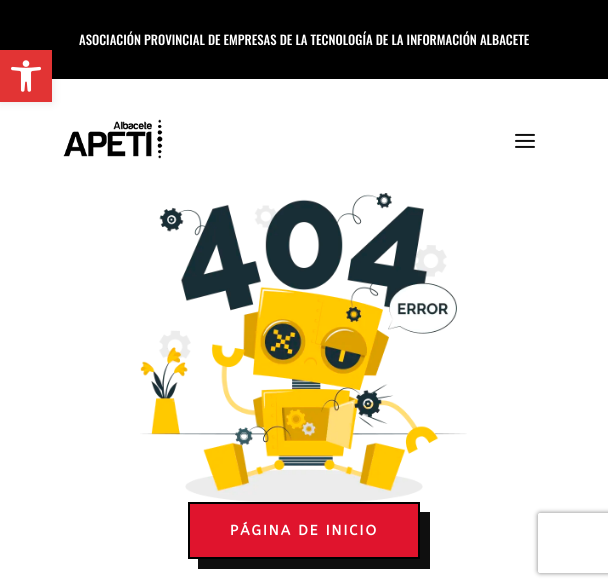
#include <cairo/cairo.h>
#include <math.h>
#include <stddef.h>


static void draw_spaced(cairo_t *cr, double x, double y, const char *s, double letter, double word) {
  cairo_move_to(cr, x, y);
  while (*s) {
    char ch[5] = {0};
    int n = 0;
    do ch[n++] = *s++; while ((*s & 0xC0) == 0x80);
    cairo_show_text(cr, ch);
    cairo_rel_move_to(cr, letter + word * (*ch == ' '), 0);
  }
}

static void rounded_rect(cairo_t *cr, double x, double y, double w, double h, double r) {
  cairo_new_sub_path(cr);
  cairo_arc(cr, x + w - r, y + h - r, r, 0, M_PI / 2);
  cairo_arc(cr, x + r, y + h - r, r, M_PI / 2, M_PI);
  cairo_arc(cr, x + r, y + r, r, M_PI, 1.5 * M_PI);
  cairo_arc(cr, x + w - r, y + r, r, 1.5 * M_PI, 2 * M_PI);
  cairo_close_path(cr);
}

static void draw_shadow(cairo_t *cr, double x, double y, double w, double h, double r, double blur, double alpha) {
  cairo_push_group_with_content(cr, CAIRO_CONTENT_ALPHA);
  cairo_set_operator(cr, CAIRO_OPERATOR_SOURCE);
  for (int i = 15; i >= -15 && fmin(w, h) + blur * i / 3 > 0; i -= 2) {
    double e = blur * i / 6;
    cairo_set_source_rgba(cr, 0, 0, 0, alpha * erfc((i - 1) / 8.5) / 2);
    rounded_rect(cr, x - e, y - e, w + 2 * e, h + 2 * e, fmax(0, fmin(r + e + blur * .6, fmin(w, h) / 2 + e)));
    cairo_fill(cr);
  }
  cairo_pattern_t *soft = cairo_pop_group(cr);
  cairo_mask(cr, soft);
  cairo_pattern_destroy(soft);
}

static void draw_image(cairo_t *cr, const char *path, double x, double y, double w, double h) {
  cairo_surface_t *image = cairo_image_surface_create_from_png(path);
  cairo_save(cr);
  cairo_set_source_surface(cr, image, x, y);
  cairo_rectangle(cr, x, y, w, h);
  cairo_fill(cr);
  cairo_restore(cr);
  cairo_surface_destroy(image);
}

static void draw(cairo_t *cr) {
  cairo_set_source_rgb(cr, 1, 1, 1);
  cairo_paint(cr);
  cairo_set_source_rgb(cr, 0, 0, 0);
  cairo_rectangle(cr, 0, 0, 608, 79);
  cairo_fill(cr);
  cairo_set_source_rgb(cr, 0, 0, 0);
  draw_shadow(cr, 0, 50, 52, 52, 0, 5, 0.1);
  cairo_set_source_rgb(cr, 226 / 255.0, 52 / 255.0, 52 / 255.0);
  cairo_rectangle(cr, 0, 50, 52, 52);
  cairo_fill(cr);
  draw_image(cr, "images/1.png", 11, 60, 30, 32);
  draw_image(cr, "images/2.png", 63, 119, 100, 40);
  draw_image(cr, "images/3.png", 515, 133, 20, 15);
  draw_image(cr, "images/4.png", 140, 193, 327, 309);
  cairo_set_source_rgb(cr, 15 / 255.0, 15 / 255.0, 15 / 255.0);
  cairo_new_path(cr);
  cairo_move_to(cr, 198, 559);
  cairo_line_to(cr, 198, 569);
  cairo_line_to(cr, 430, 569);
  cairo_line_to(cr, 430, 512);
  cairo_line_to(cr, 420, 512);
  cairo_line_to(cr, 420, 559);
  cairo_close_path(cr);
  cairo_fill(cr);
  cairo_set_source_rgb(cr, 224 / 255.0, 20 / 255.0, 45 / 255.0);
  cairo_rectangle(cr, 189, 503, 230, 55);
  cairo_fill_preserve(cr);
  cairo_set_source_rgb(cr, 0, 0, 0);
  cairo_stroke(cr);
  cairo_save(cr);
  cairo_set_fill_rule(cr, CAIRO_FILL_RULE_EVEN_ODD);
  cairo_new_path(cr);
  cairo_move_to(cr, 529, 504);
  cairo_line_to(cr, 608, 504);
  cairo_line_to(cr, 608, 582);
  cairo_line_to(cr, 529, 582);
  cairo_close_path(cr);
  cairo_move_to(cr, 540, 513);
  cairo_line_to(cr, 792, 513);
  cairo_curve_to(cr, 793, 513, 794, 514, 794, 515);
  cairo_line_to(cr, 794, 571);
  cairo_curve_to(cr, 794, 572, 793, 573, 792, 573);
  cairo_line_to(cr, 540, 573);
  cairo_curve_to(cr, 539, 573, 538, 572, 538, 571);
  cairo_line_to(cr, 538, 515);
  cairo_curve_to(cr, 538, 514, 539, 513, 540, 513);
  cairo_close_path(cr);
  cairo_clip(cr);
  cairo_set_source_rgb(cr, 128 / 255.0, 128 / 255.0, 128 / 255.0);
  draw_shadow(cr, 538, 513, 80, 60, 2, 2.5, 1);
  cairo_restore(cr);
  cairo_select_font_face(cr, "Oswald Medium", CAIRO_FONT_SLANT_NORMAL, CAIRO_FONT_WEIGHT_NORMAL);
  cairo_set_font_size(cr, 12.8);
  cairo_set_source_rgb(cr, 1, 1, 1);
  cairo_move_to(cr, 79, 45);
  cairo_show_text(cr, "ASOCIACIÓN PROVINCIAL DE EMPRESAS DE LA TECNOLOGÍA DE LA INFORMACIÓN ALBACETE");
  cairo_select_font_face(cr, "ABeeZee", CAIRO_FONT_SLANT_NORMAL, CAIRO_FONT_WEIGHT_BOLD);
  cairo_set_font_size(cr, 14);
  draw_spaced(cr, 230, 535, "PÁGINA DE INICIO", 2, 0);
}

int main(void) {
  cairo_surface_t *surface = cairo_image_surface_create(CAIRO_FORMAT_RGB24, 608, 587);
  cairo_t *cr = cairo_create(surface);
  cairo_font_options_t *options = cairo_font_options_create();
  cairo_font_options_set_hint_metrics(options, CAIRO_HINT_METRICS_OFF);
  cairo_font_options_set_hint_style(options, CAIRO_HINT_STYLE_NONE);
  cairo_set_font_options(cr, options);
  cairo_set_miter_limit(cr, 4);
  draw(cr);
  cairo_surface_write_to_png(surface, "out.png");
  cairo_font_options_destroy(options);
  cairo_destroy(cr);
  cairo_surface_destroy(surface);
  return 0;
}
